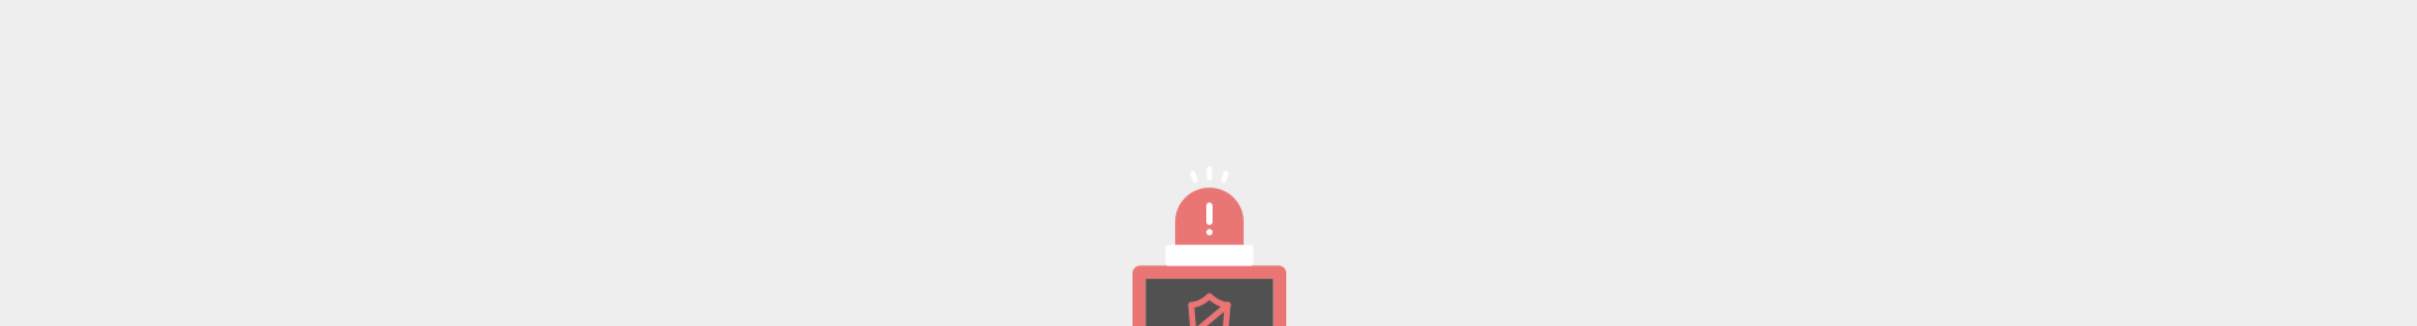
#include <cairo/cairo.h>
#include <math.h>
#include <stddef.h>


static void draw_image(cairo_t *cr, const char *path, double x, double y, double w, double h) {
  cairo_surface_t *image = cairo_image_surface_create_from_png(path);
  cairo_save(cr);
  cairo_set_source_surface(cr, image, x, y);
  cairo_rectangle(cr, x, y, w, h);
  cairo_fill(cr);
  cairo_restore(cr);
  cairo_surface_destroy(image);
}

static void draw(cairo_t *cr) {
  cairo_set_source_rgb(cr, 238 / 255.0, 238 / 255.0, 238 / 255.0);
  cairo_paint(cr);
  draw_image(cr, "images/1.png", 1132, 166, 155, 160);
}

int main(void) {
  cairo_surface_t *surface = cairo_image_surface_create(CAIRO_FORMAT_RGB24, 2417, 326);
  cairo_t *cr = cairo_create(surface);
  cairo_font_options_t *options = cairo_font_options_create();
  cairo_font_options_set_hint_metrics(options, CAIRO_HINT_METRICS_OFF);
  cairo_font_options_set_hint_style(options, CAIRO_HINT_STYLE_NONE);
  cairo_set_font_options(cr, options);
  cairo_set_miter_limit(cr, 4);
  draw(cr);
  cairo_surface_write_to_png(surface, "out.png");
  cairo_font_options_destroy(options);
  cairo_destroy(cr);
  cairo_surface_destroy(surface);
  return 0;
}
